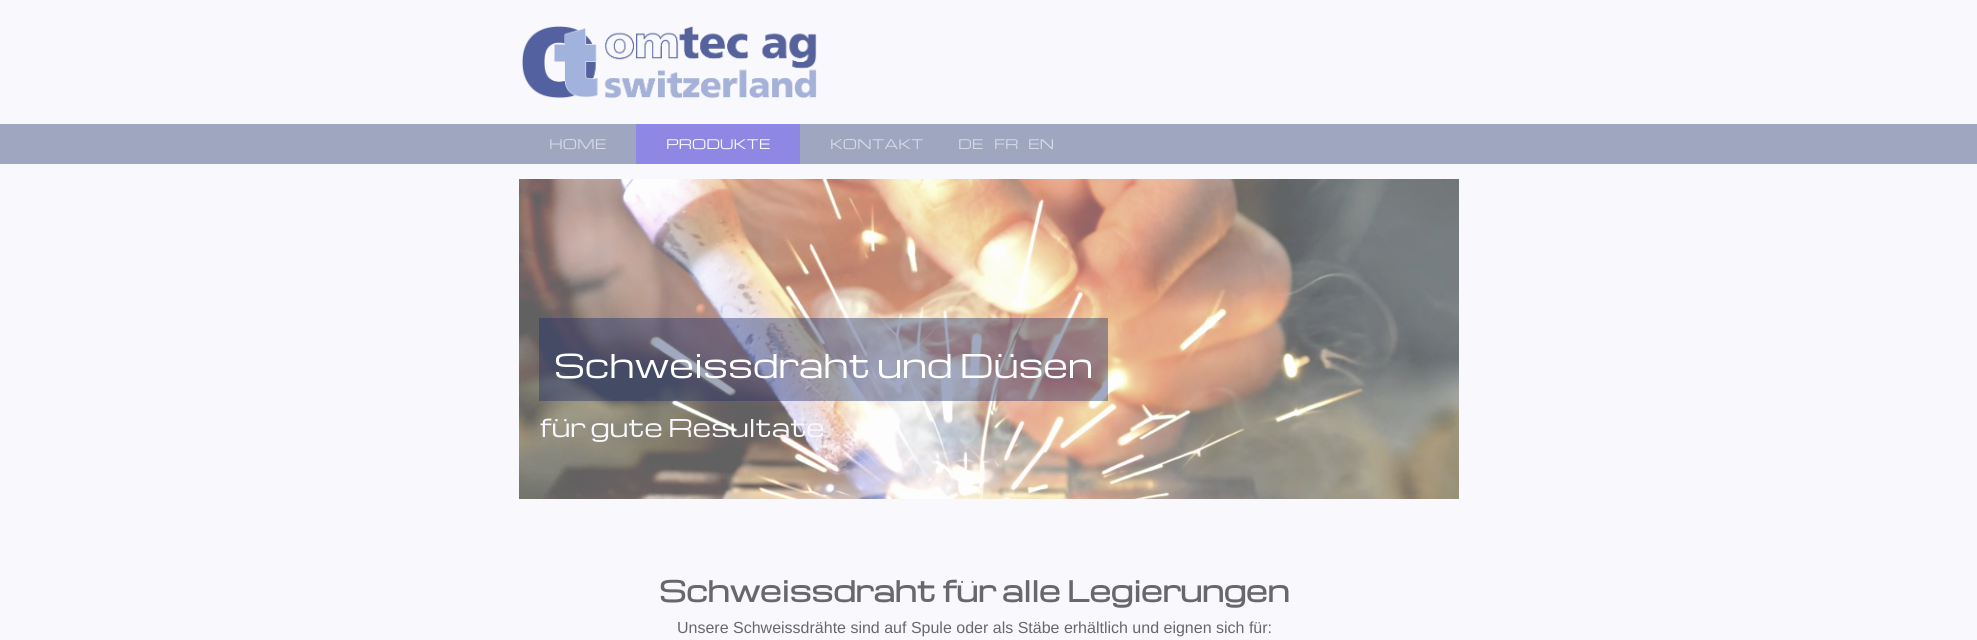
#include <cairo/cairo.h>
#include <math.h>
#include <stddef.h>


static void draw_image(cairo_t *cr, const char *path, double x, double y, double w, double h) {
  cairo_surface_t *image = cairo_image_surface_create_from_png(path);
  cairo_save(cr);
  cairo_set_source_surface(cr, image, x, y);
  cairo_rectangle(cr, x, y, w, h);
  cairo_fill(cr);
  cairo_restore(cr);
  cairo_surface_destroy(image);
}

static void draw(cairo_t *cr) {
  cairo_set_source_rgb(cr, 249 / 255.0, 249 / 255.0, 253 / 255.0);
  cairo_paint(cr);
  draw_image(cr, "images/1.png", 522, 26, 295, 73);
  cairo_set_source_rgb(cr, 158 / 255.0, 166 / 255.0, 192 / 255.0);
  cairo_rectangle(cr, 0, 124, 1977, 40);
  cairo_fill(cr);
  cairo_set_source_rgb(cr, 143 / 255.0, 135 / 255.0, 228 / 255.0);
  cairo_rectangle(cr, 636, 124, 164, 40);
  cairo_fill(cr);
  draw_image(cr, "images/2.png", 519, 179, 940, 320);
  cairo_set_source_rgba(cr, 28 / 255.0, 46 / 255.0, 105 / 255.0, 0.41);
  cairo_rectangle(cr, 539, 318, 569, 83);
  cairo_fill(cr);
  cairo_select_font_face(cr, "Michroma", CAIRO_FONT_SLANT_NORMAL, CAIRO_FONT_WEIGHT_NORMAL);
  cairo_set_font_size(cr, 13);
  cairo_set_source_rgb(cr, 214 / 255.0, 217 / 255.0, 230 / 255.0);
  cairo_move_to(cr, 549, 149);
  cairo_show_text(cr, "HOME");
  cairo_set_source_rgb(cr, 249 / 255.0, 249 / 255.0, 253 / 255.0);
  cairo_move_to(cr, 666, 149);
  cairo_show_text(cr, "PRODUKTE");
  cairo_set_source_rgb(cr, 214 / 255.0, 217 / 255.0, 230 / 255.0);
  cairo_move_to(cr, 830, 149);
  cairo_show_text(cr, "KONTAKT");
  cairo_move_to(cr, 958, 149);
  cairo_show_text(cr, "DE");
  cairo_move_to(cr, 994, 149);
  cairo_show_text(cr, "FR");
  cairo_move_to(cr, 1028, 149);
  cairo_show_text(cr, "EN");
  cairo_set_font_size(cr, 32);
  cairo_set_source_rgb(cr, 1, 1, 1);
  cairo_move_to(cr, 554, 378);
  cairo_show_text(cr, "Schweissdraht und Düsen");
  cairo_set_font_size(cr, 24);
  cairo_set_source_rgb(cr, 249 / 255.0, 249 / 255.0, 253 / 255.0);
  cairo_move_to(cr, 539, 437);
  cairo_show_text(cr, "für gute Resultate");
  cairo_select_font_face(cr, "Michroma", CAIRO_FONT_SLANT_NORMAL, CAIRO_FONT_WEIGHT_BOLD);
  cairo_set_font_size(cr, 28);
  cairo_set_source_rgb(cr, 104 / 255.0, 104 / 255.0, 107 / 255.0);
  cairo_move_to(cr, 659, 602);
  cairo_show_text(cr, "Schweissdraht für alle Legierungen");
  cairo_select_font_face(cr, "Liberation Sans", CAIRO_FONT_SLANT_NORMAL, CAIRO_FONT_WEIGHT_NORMAL);
  cairo_set_font_size(cr, 16);
  cairo_move_to(cr, 677, 633);
  cairo_show_text(cr, "Unsere Schweissdrähte sind auf Spule oder als Stäbe erhältlich und eignen sich für:");
}

int main(void) {
  cairo_surface_t *surface = cairo_image_surface_create(CAIRO_FORMAT_RGB24, 1977, 640);
  cairo_t *cr = cairo_create(surface);
  cairo_font_options_t *options = cairo_font_options_create();
  cairo_font_options_set_hint_metrics(options, CAIRO_HINT_METRICS_OFF);
  cairo_font_options_set_hint_style(options, CAIRO_HINT_STYLE_NONE);
  cairo_set_font_options(cr, options);
  cairo_set_miter_limit(cr, 4);
  draw(cr);
  cairo_surface_write_to_png(surface, "out.png");
  cairo_font_options_destroy(options);
  cairo_destroy(cr);
  cairo_surface_destroy(surface);
  return 0;
}
